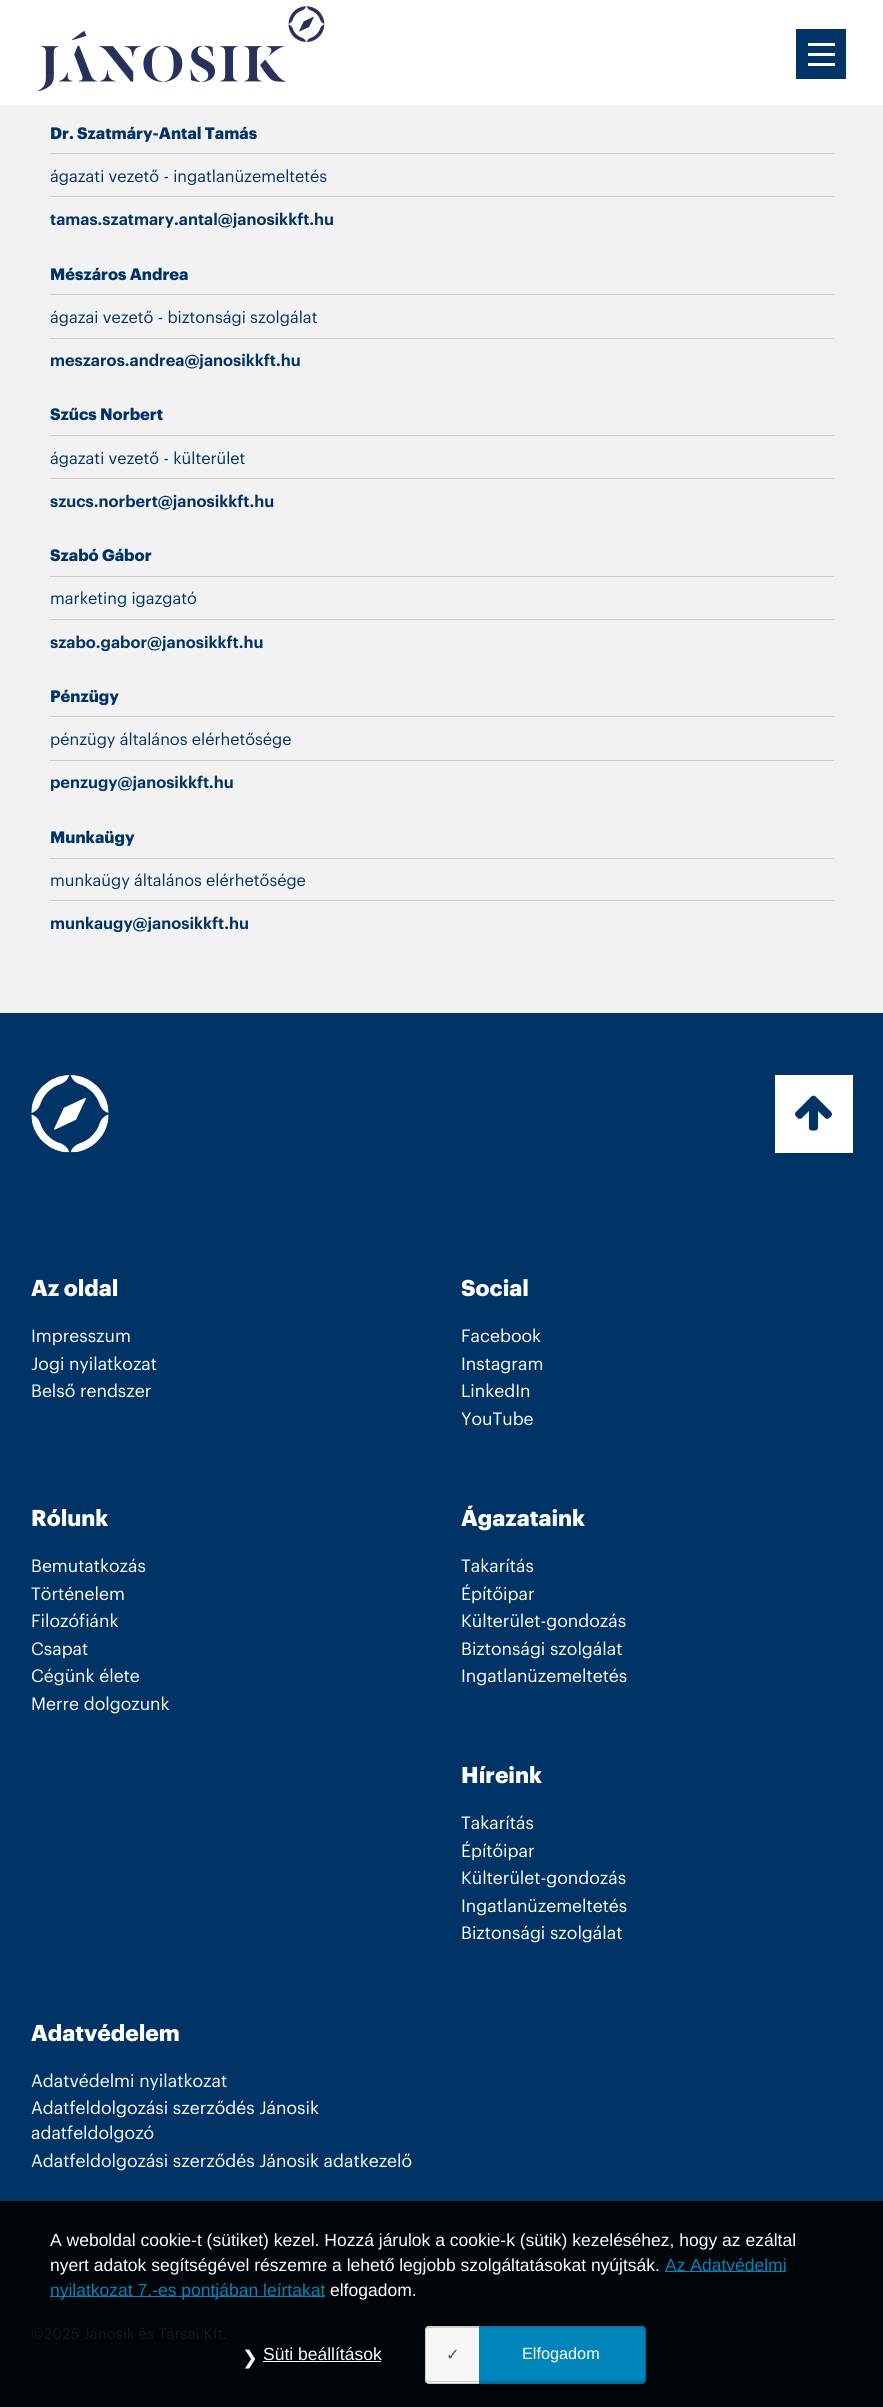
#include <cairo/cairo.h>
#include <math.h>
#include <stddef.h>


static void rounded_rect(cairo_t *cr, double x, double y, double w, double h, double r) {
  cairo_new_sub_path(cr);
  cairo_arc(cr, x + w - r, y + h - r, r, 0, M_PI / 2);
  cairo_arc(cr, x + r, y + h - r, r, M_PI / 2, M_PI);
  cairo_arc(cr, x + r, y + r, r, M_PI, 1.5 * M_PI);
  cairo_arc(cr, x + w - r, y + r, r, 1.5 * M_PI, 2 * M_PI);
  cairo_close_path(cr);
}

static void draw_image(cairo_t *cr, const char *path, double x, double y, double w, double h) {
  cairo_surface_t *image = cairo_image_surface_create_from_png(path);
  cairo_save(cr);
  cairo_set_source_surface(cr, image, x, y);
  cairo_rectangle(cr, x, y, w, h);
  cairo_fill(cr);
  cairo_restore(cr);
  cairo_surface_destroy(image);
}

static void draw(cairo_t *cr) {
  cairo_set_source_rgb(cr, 0, 51 / 255.0, 102 / 255.0);
  cairo_paint(cr);
  cairo_set_source_rgb(cr, 1, 1, 1);
  cairo_rectangle(cr, 0, 0, 883, 105);
  cairo_fill(cr);
  draw_image(cr, "images/1.png", 38, 6, 287, 85);
  cairo_set_source_rgb(cr, 0, 51 / 255.0, 102 / 255.0);
  cairo_rectangle(cr, 796, 29, 50, 50);
  cairo_fill(cr);
  cairo_set_source_rgb(cr, 1, 1, 1);
  cairo_rectangle(cr, 808, 43, 27, 3);
  cairo_fill(cr);
  cairo_rectangle(cr, 808, 53, 27, 3);
  cairo_fill(cr);
  cairo_rectangle(cr, 808, 63, 27, 3);
  cairo_fill(cr);
  cairo_set_source_rgb(cr, 242 / 255.0, 242 / 255.0, 242 / 255.0);
  cairo_rectangle(cr, 0, 105, 883, 908);
  cairo_fill(cr);
  cairo_set_source_rgb(cr, 204 / 255.0, 204 / 255.0, 204 / 255.0);
  cairo_rectangle(cr, 50, 153, 784, 1);
  cairo_fill(cr);
  cairo_rectangle(cr, 50, 196, 784, 1);
  cairo_fill(cr);
  cairo_rectangle(cr, 50, 294, 784, 1);
  cairo_fill(cr);
  cairo_rectangle(cr, 50, 338, 784, 1);
  cairo_fill(cr);
  cairo_rectangle(cr, 50, 435, 784, 1);
  cairo_fill(cr);
  cairo_rectangle(cr, 50, 478, 784, 1);
  cairo_fill(cr);
  cairo_rectangle(cr, 50, 576, 784, 1);
  cairo_fill(cr);
  cairo_rectangle(cr, 50, 619, 784, 1);
  cairo_fill(cr);
  cairo_rectangle(cr, 50, 716, 784, 1);
  cairo_fill(cr);
  cairo_rectangle(cr, 50, 760, 784, 1);
  cairo_fill(cr);
  cairo_rectangle(cr, 50, 858, 784, 1);
  cairo_fill(cr);
  cairo_rectangle(cr, 50, 900, 784, 1);
  cairo_fill(cr);
  cairo_set_source_rgb(cr, 0, 5 / 255.0, 10 / 255.0);
  cairo_rectangle(cr, 0, 2201, 883, 206);
  cairo_fill(cr);
  draw_image(cr, "images/2.png", 31, 1075, 78, 78);
  cairo_set_source_rgb(cr, 1, 1, 1);
  cairo_rectangle(cr, 775, 1075, 78, 78);
  cairo_fill(cr);
  draw_image(cr, "images/3.png", 795, 1095, 37, 36);
  cairo_set_source_rgb(cr, 0, 133 / 255.0, 186 / 255.0);
  cairo_rectangle(cr, 665, 2271, 121, 1);
  cairo_fill(cr);
  cairo_rectangle(cr, 50, 2296, 275, 1);
  cairo_fill(cr);
  cairo_set_source_rgb(cr, 1, 1, 1);
  cairo_rectangle(cr, 263, 2361, 118, 1);
  cairo_fill(cr);
  cairo_set_source_rgb(cr, 0, 103 / 255.0, 153 / 255.0);
  cairo_new_path(cr);
  cairo_move_to(cr, 425, 2379);
  cairo_line_to(cr, 425, 2380);
  cairo_curve_to(cr, 425, 2382, 427, 2384, 429, 2384);
  cairo_line_to(cr, 642, 2384);
  cairo_curve_to(cr, 644, 2384, 646, 2382, 646, 2380);
  cairo_curve_to(cr, 645, 2382, 644, 2382, 642, 2382);
  cairo_line_to(cr, 429, 2382);
  cairo_curve_to(cr, 427, 2382, 425, 2381, 425, 2379);
  cairo_close_path(cr);
  cairo_fill(cr);
  cairo_set_source_rgb(cr, 0, 133 / 255.0, 186 / 255.0);
  rounded_rect(cr, 425, 2326, 221, 57, 4);
  cairo_fill(cr);
  cairo_new_path(cr);
  cairo_move_to(cr, 426.5, 2328);
  cairo_line_to(cr, 429, 2327);
  cairo_line_to(cr, 642.5, 2327);
  cairo_line_to(cr, 644.5, 2328);
  cairo_set_source_rgb(cr, 0, 115 / 255.0, 170 / 255.0);
  cairo_set_line_width(cr, 1.2);
  cairo_stroke(cr);
  cairo_new_path(cr);
  cairo_move_to(cr, 644.5, 2328);
  cairo_line_to(cr, 645.5, 2330);
  cairo_line_to(cr, 645.5, 2379);
  cairo_line_to(cr, 644.5, 2381);
  cairo_line_to(cr, 642.5, 2382);
  cairo_line_to(cr, 429, 2382);
  cairo_line_to(cr, 426.5, 2381);
  cairo_line_to(cr, 425.5, 2379);
  cairo_line_to(cr, 425.5, 2330);
  cairo_line_to(cr, 426.5, 2328);
  cairo_set_source_rgb(cr, 0, 103 / 255.0, 153 / 255.0);
  cairo_stroke(cr);
  cairo_set_source_rgb(cr, 204 / 255.0, 204 / 255.0, 204 / 255.0);
  cairo_new_path(cr);
  cairo_move_to(cr, 425, 2379);
  cairo_line_to(cr, 425, 2380);
  cairo_curve_to(cr, 425, 2382, 427, 2384, 429, 2384);
  cairo_line_to(cr, 479, 2384);
  cairo_line_to(cr, 479, 2328);
  cairo_line_to(cr, 479, 2382);
  cairo_line_to(cr, 429, 2382);
  cairo_curve_to(cr, 427, 2382, 425, 2381, 425, 2379);
  cairo_close_path(cr);
  cairo_fill(cr);
  cairo_set_source_rgb(cr, 247 / 255.0, 247 / 255.0, 247 / 255.0);
  cairo_new_path(cr);
  cairo_move_to(cr, 429, 2326);
  cairo_line_to(cr, 479, 2326);
  cairo_line_to(cr, 479, 2383);
  cairo_line_to(cr, 429, 2383);
  cairo_curve_to(cr, 427, 2383, 425, 2381, 425, 2379);
  cairo_line_to(cr, 425, 2330);
  cairo_curve_to(cr, 425, 2328, 427, 2326, 429, 2326);
  cairo_close_path(cr);
  cairo_fill(cr);
  cairo_set_source_rgb(cr, 204 / 255.0, 204 / 255.0, 204 / 255.0);
  cairo_set_fill_rule(cr, CAIRO_FILL_RULE_EVEN_ODD);
  cairo_new_path(cr);
  cairo_move_to(cr, 429, 2326);
  cairo_line_to(cr, 479, 2326);
  cairo_line_to(cr, 479, 2382);
  cairo_line_to(cr, 429, 2382);
  cairo_curve_to(cr, 427, 2382, 425, 2381, 425, 2379);
  cairo_line_to(cr, 425, 2330);
  cairo_curve_to(cr, 425, 2328, 427, 2326, 429, 2326);
  cairo_close_path(cr);
  cairo_move_to(cr, 429, 2328);
  cairo_line_to(cr, 479, 2328);
  cairo_line_to(cr, 479, 2381);
  cairo_line_to(cr, 429, 2381);
  cairo_curve_to(cr, 427, 2381, 426, 2380, 426, 2379);
  cairo_line_to(cr, 426, 2330);
  cairo_curve_to(cr, 426, 2329, 427, 2328, 429, 2328);
  cairo_close_path(cr);
  cairo_fill(cr);
  cairo_select_font_face(cr, "Graphik", CAIRO_FONT_SLANT_NORMAL, CAIRO_FONT_WEIGHT_BOLD);
  cairo_set_font_size(cr, 16.25);
  cairo_set_source_rgb(cr, 0, 51 / 255.0, 102 / 255.0);
  cairo_move_to(cr, 50, 139);
  cairo_show_text(cr, "Dr. Szatmáry-Antal Tamás");
  cairo_select_font_face(cr, "Graphik", CAIRO_FONT_SLANT_NORMAL, CAIRO_FONT_WEIGHT_NORMAL);
  cairo_move_to(cr, 50, 182);
  cairo_show_text(cr, "ágazati vezető - ingatlanüzemeltetés");
  cairo_select_font_face(cr, "Graphik SemiBold", CAIRO_FONT_SLANT_NORMAL, CAIRO_FONT_WEIGHT_NORMAL);
  cairo_move_to(cr, 50, 225);
  cairo_show_text(cr, "tamas.szatmary.antal@janosikkft.hu");
  cairo_select_font_face(cr, "Graphik", CAIRO_FONT_SLANT_NORMAL, CAIRO_FONT_WEIGHT_BOLD);
  cairo_move_to(cr, 50, 280);
  cairo_show_text(cr, "Mészáros Andrea");
  cairo_select_font_face(cr, "Graphik", CAIRO_FONT_SLANT_NORMAL, CAIRO_FONT_WEIGHT_NORMAL);
  cairo_move_to(cr, 50, 323);
  cairo_show_text(cr, "ágazai vezető - biztonsági szolgálat");
  cairo_select_font_face(cr, "Graphik SemiBold", CAIRO_FONT_SLANT_NORMAL, CAIRO_FONT_WEIGHT_NORMAL);
  cairo_move_to(cr, 50, 366);
  cairo_show_text(cr, "meszaros.andrea@janosikkft.hu");
  cairo_select_font_face(cr, "Graphik", CAIRO_FONT_SLANT_NORMAL, CAIRO_FONT_WEIGHT_BOLD);
  cairo_move_to(cr, 50, 420);
  cairo_show_text(cr, "Szűcs Norbert");
  cairo_select_font_face(cr, "Graphik", CAIRO_FONT_SLANT_NORMAL, CAIRO_FONT_WEIGHT_NORMAL);
  cairo_move_to(cr, 50, 464);
  cairo_show_text(cr, "ágazati vezető - külterület");
  cairo_select_font_face(cr, "Graphik SemiBold", CAIRO_FONT_SLANT_NORMAL, CAIRO_FONT_WEIGHT_NORMAL);
  cairo_move_to(cr, 50, 507);
  cairo_show_text(cr, "szucs.norbert@janosikkft.hu");
  cairo_select_font_face(cr, "Graphik", CAIRO_FONT_SLANT_NORMAL, CAIRO_FONT_WEIGHT_BOLD);
  cairo_move_to(cr, 50, 561);
  cairo_show_text(cr, "Szabó Gábor");
  cairo_select_font_face(cr, "Graphik", CAIRO_FONT_SLANT_NORMAL, CAIRO_FONT_WEIGHT_NORMAL);
  cairo_move_to(cr, 50, 604);
  cairo_show_text(cr, "marketing igazgató");
  cairo_select_font_face(cr, "Graphik SemiBold", CAIRO_FONT_SLANT_NORMAL, CAIRO_FONT_WEIGHT_NORMAL);
  cairo_move_to(cr, 50, 648);
  cairo_show_text(cr, "szabo.gabor@janosikkft.hu");
  cairo_select_font_face(cr, "Graphik", CAIRO_FONT_SLANT_NORMAL, CAIRO_FONT_WEIGHT_BOLD);
  cairo_move_to(cr, 50, 702);
  cairo_show_text(cr, "Pénzügy");
  cairo_select_font_face(cr, "Graphik", CAIRO_FONT_SLANT_NORMAL, CAIRO_FONT_WEIGHT_NORMAL);
  cairo_move_to(cr, 50, 745);
  cairo_show_text(cr, "pénzügy általános elérhetősége");
  cairo_select_font_face(cr, "Graphik SemiBold", CAIRO_FONT_SLANT_NORMAL, CAIRO_FONT_WEIGHT_NORMAL);
  cairo_move_to(cr, 50, 788);
  cairo_show_text(cr, "penzugy@janosikkft.hu");
  cairo_select_font_face(cr, "Graphik", CAIRO_FONT_SLANT_NORMAL, CAIRO_FONT_WEIGHT_BOLD);
  cairo_move_to(cr, 50, 843);
  cairo_show_text(cr, "Munkaügy");
  cairo_select_font_face(cr, "Graphik", CAIRO_FONT_SLANT_NORMAL, CAIRO_FONT_WEIGHT_NORMAL);
  cairo_move_to(cr, 50, 886);
  cairo_show_text(cr, "munkaügy általános elérhetősége");
  cairo_select_font_face(cr, "Graphik SemiBold", CAIRO_FONT_SLANT_NORMAL, CAIRO_FONT_WEIGHT_NORMAL);
  cairo_move_to(cr, 50, 929);
  cairo_show_text(cr, "munkaugy@janosikkft.hu");
  cairo_select_font_face(cr, "Graphik", CAIRO_FONT_SLANT_NORMAL, CAIRO_FONT_WEIGHT_BOLD);
  cairo_set_font_size(cr, 22.5);
  cairo_set_source_rgb(cr, 1, 1, 1);
  cairo_move_to(cr, 31, 1296);
  cairo_show_text(cr, "Az oldal");
  cairo_select_font_face(cr, "Graphik", CAIRO_FONT_SLANT_NORMAL, CAIRO_FONT_WEIGHT_NORMAL);
  cairo_set_font_size(cr, 17.5);
  cairo_move_to(cr, 31, 1342);
  cairo_show_text(cr, "Impresszum");
  cairo_move_to(cr, 31, 1370);
  cairo_show_text(cr, "Jogi nyilatkozat");
  cairo_move_to(cr, 31, 1397);
  cairo_show_text(cr, "Belső rendszer");
  cairo_select_font_face(cr, "Graphik", CAIRO_FONT_SLANT_NORMAL, CAIRO_FONT_WEIGHT_BOLD);
  cairo_set_font_size(cr, 22.5);
  cairo_move_to(cr, 461, 1296);
  cairo_show_text(cr, "Social");
  cairo_select_font_face(cr, "Graphik", CAIRO_FONT_SLANT_NORMAL, CAIRO_FONT_WEIGHT_NORMAL);
  cairo_set_font_size(cr, 17.5);
  cairo_move_to(cr, 461, 1342);
  cairo_show_text(cr, "Facebook");
  cairo_move_to(cr, 461, 1370);
  cairo_show_text(cr, "Instagram");
  cairo_move_to(cr, 461, 1397);
  cairo_show_text(cr, "LinkedIn");
  cairo_move_to(cr, 461, 1425);
  cairo_show_text(cr, "YouTube");
  cairo_select_font_face(cr, "Graphik", CAIRO_FONT_SLANT_NORMAL, CAIRO_FONT_WEIGHT_BOLD);
  cairo_set_font_size(cr, 22.5);
  cairo_move_to(cr, 31, 1526);
  cairo_show_text(cr, "Rólunk");
  cairo_select_font_face(cr, "Graphik", CAIRO_FONT_SLANT_NORMAL, CAIRO_FONT_WEIGHT_NORMAL);
  cairo_set_font_size(cr, 17.5);
  cairo_move_to(cr, 31, 1572);
  cairo_show_text(cr, "Bemutatkozás");
  cairo_move_to(cr, 31, 1600);
  cairo_show_text(cr, "Történelem");
  cairo_move_to(cr, 31, 1627);
  cairo_show_text(cr, "Filozófiánk");
  cairo_move_to(cr, 31, 1655);
  cairo_show_text(cr, "Csapat");
  cairo_move_to(cr, 31, 1682);
  cairo_show_text(cr, "Cégünk élete");
  cairo_move_to(cr, 31, 1710);
  cairo_show_text(cr, "Merre dolgozunk");
  cairo_select_font_face(cr, "Graphik", CAIRO_FONT_SLANT_NORMAL, CAIRO_FONT_WEIGHT_BOLD);
  cairo_set_font_size(cr, 22.5);
  cairo_move_to(cr, 461, 1526);
  cairo_show_text(cr, "Ágazataink");
  cairo_select_font_face(cr, "Graphik", CAIRO_FONT_SLANT_NORMAL, CAIRO_FONT_WEIGHT_NORMAL);
  cairo_set_font_size(cr, 17.5);
  cairo_move_to(cr, 461, 1572);
  cairo_show_text(cr, "Takarítás");
  cairo_move_to(cr, 461, 1600);
  cairo_show_text(cr, "Építőipar");
  cairo_move_to(cr, 461, 1627);
  cairo_show_text(cr, "Külterület-gondozás");
  cairo_move_to(cr, 461, 1655);
  cairo_show_text(cr, "Biztonsági szolgálat");
  cairo_move_to(cr, 461, 1682);
  cairo_show_text(cr, "Ingatlanüzemeltetés");
  cairo_select_font_face(cr, "Graphik", CAIRO_FONT_SLANT_NORMAL, CAIRO_FONT_WEIGHT_BOLD);
  cairo_set_font_size(cr, 22.5);
  cairo_move_to(cr, 461, 1783);
  cairo_show_text(cr, "Híreink");
  cairo_select_font_face(cr, "Graphik", CAIRO_FONT_SLANT_NORMAL, CAIRO_FONT_WEIGHT_NORMAL);
  cairo_set_font_size(cr, 17.5);
  cairo_move_to(cr, 461, 1829);
  cairo_show_text(cr, "Takarítás");
  cairo_move_to(cr, 461, 1857);
  cairo_show_text(cr, "Építőipar");
  cairo_move_to(cr, 461, 1884);
  cairo_show_text(cr, "Külterület-gondozás");
  cairo_move_to(cr, 461, 1912);
  cairo_show_text(cr, "Ingatlanüzemeltetés");
  cairo_move_to(cr, 461, 1939);
  cairo_show_text(cr, "Biztonsági szolgálat");
  cairo_select_font_face(cr, "Graphik", CAIRO_FONT_SLANT_NORMAL, CAIRO_FONT_WEIGHT_BOLD);
  cairo_set_font_size(cr, 22.5);
  cairo_move_to(cr, 31, 2041);
  cairo_show_text(cr, "Adatvédelem");
  cairo_select_font_face(cr, "Graphik", CAIRO_FONT_SLANT_NORMAL, CAIRO_FONT_WEIGHT_NORMAL);
  cairo_set_font_size(cr, 17.5);
  cairo_move_to(cr, 31, 2087);
  cairo_show_text(cr, "Adatvédelmi nyilatkozat");
  cairo_move_to(cr, 31, 2114);
  cairo_show_text(cr, "Adatfeldolgozási szerződés Jánosik");
  cairo_move_to(cr, 31, 2139);
  cairo_show_text(cr, "adatfeldolgozó");
  cairo_move_to(cr, 31, 2167);
  cairo_show_text(cr, "Adatfeldolgozási szerződés Jánosik adatkezelő");
  cairo_select_font_face(cr, "Liberation Sans", CAIRO_FONT_SLANT_NORMAL, CAIRO_FONT_WEIGHT_NORMAL);
  cairo_move_to(cr, 50, 2246);
  cairo_show_text(cr, "A weboldal cookie-t (sütiket) kezel. Hozzá járulok a cookie-k (sütik) kezeléséhez, hogy az ezáltal");
  cairo_move_to(cr, 50, 2271);
  cairo_show_text(cr, "nyert adatok segítségével részemre a lehető legjobb szolgáltatásokat nyújtsák.");
  cairo_set_source_rgb(cr, 0, 133 / 255.0, 186 / 255.0);
  cairo_move_to(cr, 665, 2271);
  cairo_show_text(cr, "Az Adatvédelmi");
  cairo_move_to(cr, 50, 2296);
  cairo_show_text(cr, "nyilatkozat 7.-es pontjában leírtakat");
  cairo_set_source_rgb(cr, 1, 1, 1);
  cairo_move_to(cr, 330, 2296);
  cairo_show_text(cr, "elfogadom.");
  cairo_select_font_face(cr, "DejaVu Sans", CAIRO_FONT_SLANT_NORMAL, CAIRO_FONT_WEIGHT_NORMAL);
  cairo_set_font_size(cr, 19);
  cairo_move_to(cr, 242, 2364);
  cairo_show_text(cr, "❯");
  cairo_select_font_face(cr, "Liberation Sans", CAIRO_FONT_SLANT_NORMAL, CAIRO_FONT_WEIGHT_NORMAL);
  cairo_set_font_size(cr, 17.5);
  cairo_move_to(cr, 263, 2360);
  cairo_show_text(cr, "Süti beállítások");
  cairo_select_font_face(cr, "DejaVu Sans", CAIRO_FONT_SLANT_NORMAL, CAIRO_FONT_WEIGHT_NORMAL);
  cairo_set_font_size(cr, 16.25);
  cairo_set_source_rgb(cr, 85 / 255.0, 85 / 255.0, 85 / 255.0);
  cairo_move_to(cr, 446, 2360);
  cairo_show_text(cr, "✓");
  cairo_select_font_face(cr, "Liberation Sans", CAIRO_FONT_SLANT_NORMAL, CAIRO_FONT_WEIGHT_NORMAL);
  cairo_set_source_rgb(cr, 1, 1, 1);
  cairo_move_to(cr, 522, 2359);
  cairo_show_text(cr, "Elfogadom");
  cairo_select_font_face(cr, "Graphik", CAIRO_FONT_SLANT_NORMAL, CAIRO_FONT_WEIGHT_NORMAL);
  cairo_set_font_size(cr, 15);
  cairo_set_source_rgb(cr, 25 / 255.0, 25 / 255.0, 25 / 255.0);
  cairo_move_to(cr, 31, 2339);
  cairo_show_text(cr, "©2025 Jánosik és Társai Kft.");
}

int main(void) {
  cairo_surface_t *surface = cairo_image_surface_create(CAIRO_FORMAT_RGB24, 883, 2407);
  cairo_t *cr = cairo_create(surface);
  cairo_font_options_t *options = cairo_font_options_create();
  cairo_font_options_set_hint_metrics(options, CAIRO_HINT_METRICS_OFF);
  cairo_font_options_set_hint_style(options, CAIRO_HINT_STYLE_NONE);
  cairo_set_font_options(cr, options);
  cairo_set_miter_limit(cr, 4);
  draw(cr);
  cairo_surface_write_to_png(surface, "out.png");
  cairo_font_options_destroy(options);
  cairo_destroy(cr);
  cairo_surface_destroy(surface);
  return 0;
}
